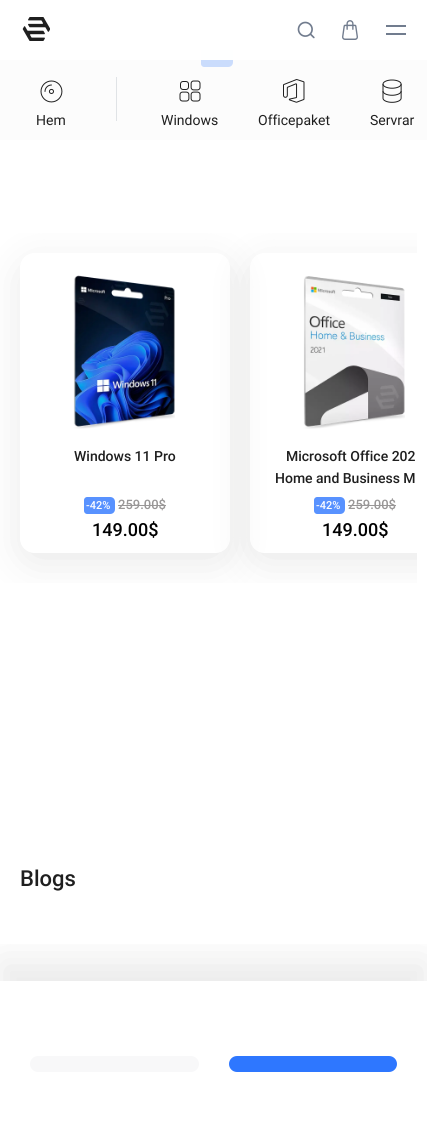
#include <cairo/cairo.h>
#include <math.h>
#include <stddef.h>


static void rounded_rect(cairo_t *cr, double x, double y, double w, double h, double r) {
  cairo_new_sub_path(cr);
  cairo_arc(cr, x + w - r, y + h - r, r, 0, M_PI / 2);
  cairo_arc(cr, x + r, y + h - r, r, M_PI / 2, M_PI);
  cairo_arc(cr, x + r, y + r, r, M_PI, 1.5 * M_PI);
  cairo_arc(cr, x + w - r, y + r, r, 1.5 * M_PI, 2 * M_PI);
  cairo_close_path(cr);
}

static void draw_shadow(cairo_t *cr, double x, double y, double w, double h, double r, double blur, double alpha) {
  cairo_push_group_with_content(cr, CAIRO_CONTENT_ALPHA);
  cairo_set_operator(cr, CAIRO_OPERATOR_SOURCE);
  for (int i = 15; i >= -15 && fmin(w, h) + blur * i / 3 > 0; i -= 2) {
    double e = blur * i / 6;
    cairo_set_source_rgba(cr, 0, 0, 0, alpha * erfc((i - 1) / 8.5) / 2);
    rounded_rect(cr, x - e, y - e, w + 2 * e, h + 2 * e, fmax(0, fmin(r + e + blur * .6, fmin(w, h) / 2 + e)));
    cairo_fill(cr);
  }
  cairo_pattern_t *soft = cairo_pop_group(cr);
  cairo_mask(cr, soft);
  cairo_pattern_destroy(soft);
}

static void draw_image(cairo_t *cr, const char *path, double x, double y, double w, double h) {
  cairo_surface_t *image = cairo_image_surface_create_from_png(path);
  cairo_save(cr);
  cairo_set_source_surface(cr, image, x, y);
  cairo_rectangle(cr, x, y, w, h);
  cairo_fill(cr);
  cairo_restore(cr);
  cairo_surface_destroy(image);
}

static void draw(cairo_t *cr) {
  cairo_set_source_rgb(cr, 1, 1, 1);
  cairo_paint(cr);
  cairo_set_source_rgb(cr, 88 / 255.0, 146 / 255.0, 1);
  cairo_new_path(cr);
  cairo_move_to(cr, 204, 50);
  cairo_line_to(cr, 207, 50);
  cairo_line_to(cr, 207, 67);
  cairo_line_to(cr, 204, 67);
  cairo_curve_to(cr, 202.5, 67, 201, 65.5, 201, 64);
  cairo_line_to(cr, 201, 53);
  cairo_curve_to(cr, 201, 51.5, 202.5, 50, 204, 50);
  cairo_close_path(cr);
  cairo_fill(cr);
  cairo_new_path(cr);
  cairo_move_to(cr, 220, 50);
  cairo_line_to(cr, 228, 50);
  cairo_curve_to(cr, 231, 50, 233, 52, 233, 55);
  cairo_line_to(cr, 233, 62);
  cairo_curve_to(cr, 233, 65, 231, 67, 228, 67);
  cairo_line_to(cr, 220, 67);
  cairo_close_path(cr);
  cairo_fill(cr);
  cairo_set_source_rgb(cr, 254 / 255.0, 1, 1);
  cairo_rectangle(cr, 201, 50, 32, 10);
  cairo_fill(cr);
  draw_image(cr, "images/1.png", 22, 17, 28, 24);
  draw_image(cr, "images/2.png", 297, 21, 18, 18);
  draw_image(cr, "images/3.png", 342, 20, 16, 20);
  cairo_set_source_rgb(cr, 113 / 255.0, 124 / 255.0, 142 / 255.0);
  cairo_rectangle(cr, 386, 25, 20, 2);
  cairo_fill(cr);
  cairo_rectangle(cr, 386, 33, 20, 2);
  cairo_fill(cr);
  cairo_set_source_rgb(cr, 88 / 255.0, 146 / 255.0, 1);
  cairo_rectangle(cr, 207, 60, 13, 7);
  cairo_fill(cr);
  cairo_set_source_rgba(cr, 251 / 255.0, 251 / 255.0, 251 / 255.0, 0.7);
  cairo_rectangle(cr, 0, 60, 427, 80);
  cairo_fill(cr);
  draw_image(cr, "images/4.png", 40, 80, 23, 23);
  cairo_set_source_rgb(cr, 224 / 255.0, 227 / 255.0, 230 / 255.0);
  cairo_rectangle(cr, 116, 77, 1, 44);
  cairo_fill(cr);
  draw_image(cr, "images/5.png", 179, 80, 22, 22);
  draw_image(cr, "images/6.png", 283, 79, 22, 24);
  draw_image(cr, "images/7.png", 382, 79, 20, 24);
  cairo_save(cr);
  cairo_rectangle(cr, 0, 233, 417, 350);
  cairo_clip(cr);
  cairo_set_fill_rule(cr, CAIRO_FILL_RULE_EVEN_ODD);
  cairo_new_path(cr);
  cairo_move_to(cr, 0, 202);
  cairo_line_to(cr, 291, 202);
  cairo_line_to(cr, 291, 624);
  cairo_line_to(cr, 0, 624);
  cairo_close_path(cr);
  cairo_move_to(cr, 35, 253);
  cairo_line_to(cr, 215, 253);
  cairo_curve_to(cr, 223.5, 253, 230, 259.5, 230, 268);
  cairo_line_to(cr, 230, 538);
  cairo_curve_to(cr, 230, 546.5, 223.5, 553, 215, 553);
  cairo_line_to(cr, 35, 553);
  cairo_curve_to(cr, 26.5, 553, 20, 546.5, 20, 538);
  cairo_line_to(cr, 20, 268);
  cairo_curve_to(cr, 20, 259.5, 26.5, 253, 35, 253);
  cairo_close_path(cr);
  cairo_clip(cr);
  cairo_set_source_rgb(cr, 39 / 255.0, 39 / 255.0, 38 / 255.0);
  draw_shadow(cr, 20, 263, 210, 300, 15, 20, 0.1);
  cairo_restore(cr);
  draw_image(cr, "images/8.png", 73, 275, 102, 154);
  cairo_set_source_rgb(cr, 88 / 255.0, 146 / 255.0, 1);
  cairo_new_path(cr);
  cairo_move_to(cr, 87, 497);
  cairo_line_to(cr, 90, 497);
  cairo_line_to(cr, 90, 514);
  cairo_line_to(cr, 87, 514);
  cairo_curve_to(cr, 85.5, 514, 84, 512.5, 84, 511);
  cairo_line_to(cr, 84, 500);
  cairo_curve_to(cr, 84, 498.5, 85.5, 497, 87, 497);
  cairo_close_path(cr);
  cairo_fill(cr);
  cairo_rectangle(cr, 90, 497, 12, 17);
  cairo_fill(cr);
  cairo_new_path(cr);
  cairo_move_to(cr, 102, 497);
  cairo_line_to(cr, 110, 497);
  cairo_curve_to(cr, 113, 497, 115, 499, 115, 502);
  cairo_line_to(cr, 115, 509);
  cairo_curve_to(cr, 115, 512, 113, 514, 110, 514);
  cairo_line_to(cr, 102, 514);
  cairo_close_path(cr);
  cairo_fill(cr);
  cairo_set_source_rgb(cr, 153 / 255.0, 151 / 255.0, 151 / 255.0);
  cairo_rectangle(cr, 118, 505, 48, 1);
  cairo_fill(cr);
  cairo_save(cr);
  cairo_rectangle(cr, 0, 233, 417, 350);
  cairo_clip(cr);
  cairo_set_fill_rule(cr, CAIRO_FILL_RULE_EVEN_ODD);
  cairo_new_path(cr);
  cairo_move_to(cr, 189, 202);
  cairo_line_to(cr, 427, 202);
  cairo_line_to(cr, 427, 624);
  cairo_line_to(cr, 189, 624);
  cairo_close_path(cr);
  cairo_move_to(cr, 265, 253);
  cairo_line_to(cr, 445, 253);
  cairo_curve_to(cr, 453.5, 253, 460, 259.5, 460, 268);
  cairo_line_to(cr, 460, 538);
  cairo_curve_to(cr, 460, 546.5, 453.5, 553, 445, 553);
  cairo_line_to(cr, 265, 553);
  cairo_curve_to(cr, 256.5, 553, 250, 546.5, 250, 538);
  cairo_line_to(cr, 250, 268);
  cairo_curve_to(cr, 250, 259.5, 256.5, 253, 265, 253);
  cairo_close_path(cr);
  cairo_clip(cr);
  cairo_set_source_rgb(cr, 39 / 255.0, 39 / 255.0, 38 / 255.0);
  draw_shadow(cr, 250, 263, 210, 300, 15, 20, 0.1);
  cairo_restore(cr);
  draw_image(cr, "images/9.png", 303, 276, 102, 153);
  cairo_set_source_rgb(cr, 88 / 255.0, 146 / 255.0, 1);
  cairo_new_path(cr);
  cairo_move_to(cr, 317, 497);
  cairo_line_to(cr, 320, 497);
  cairo_line_to(cr, 320, 514);
  cairo_line_to(cr, 317, 514);
  cairo_curve_to(cr, 315.5, 514, 314, 512.5, 314, 511);
  cairo_line_to(cr, 314, 500);
  cairo_curve_to(cr, 314, 498.5, 315.5, 497, 317, 497);
  cairo_close_path(cr);
  cairo_fill(cr);
  cairo_rectangle(cr, 320, 497, 12, 17);
  cairo_fill(cr);
  cairo_new_path(cr);
  cairo_move_to(cr, 332, 497);
  cairo_line_to(cr, 340, 497);
  cairo_curve_to(cr, 343, 497, 345, 499, 345, 502);
  cairo_line_to(cr, 345, 509);
  cairo_curve_to(cr, 345, 512, 343, 514, 340, 514);
  cairo_line_to(cr, 332, 514);
  cairo_close_path(cr);
  cairo_fill(cr);
  cairo_set_source_rgb(cr, 153 / 255.0, 151 / 255.0, 151 / 255.0);
  cairo_rectangle(cr, 348, 505, 48, 1);
  cairo_fill(cr);
  cairo_save(cr);
  cairo_rectangle(cr, 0, 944, 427, 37);
  cairo_clip(cr);
  cairo_set_source_rgb(cr, 39 / 255.0, 39 / 255.0, 38 / 255.0);
  draw_shadow(cr, 0, 961, 427, 150, 0, 20, 0.1);
  cairo_restore(cr);
  cairo_set_source_rgb(cr, 248 / 255.0, 248 / 255.0, 249 / 255.0);
  rounded_rect(cr, 30, 1056, 169, 16, 8);
  cairo_fill(cr);
  cairo_set_source_rgb(cr, 46 / 255.0, 119 / 255.0, 1);
  rounded_rect(cr, 229, 1056, 168, 16, 8);
  cairo_fill(cr);
  cairo_select_font_face(cr, "Roboto", CAIRO_FONT_SLANT_NORMAL, CAIRO_FONT_WEIGHT_NORMAL);
  cairo_set_font_size(cr, 14);
  cairo_set_source_rgb(cr, 31 / 255.0, 31 / 255.0, 31 / 255.0);
  cairo_move_to(cr, 36, 125);
  cairo_show_text(cr, "Hem");
  cairo_move_to(cr, 161, 125);
  cairo_show_text(cr, "Windows");
  cairo_move_to(cr, 258, 125);
  cairo_show_text(cr, "Officepaket");
  cairo_move_to(cr, 370, 125);
  cairo_show_text(cr, "Servrar");
  cairo_select_font_face(cr, "Roboto Medium", CAIRO_FONT_SLANT_NORMAL, CAIRO_FONT_WEIGHT_NORMAL);
  cairo_move_to(cr, 74, 461);
  cairo_show_text(cr, "Windows 11 Pro");
  cairo_set_font_size(cr, 11);
  cairo_set_source_rgb(cr, 1, 1, 1);
  cairo_move_to(cr, 86, 509);
  cairo_show_text(cr, "-42%");
  cairo_set_font_size(cr, 13);
  cairo_set_source_rgb(cr, 153 / 255.0, 151 / 255.0, 151 / 255.0);
  cairo_move_to(cr, 118, 509);
  cairo_show_text(cr, "259.00$");
  cairo_set_font_size(cr, 18);
  cairo_set_source_rgb(cr, 0, 0, 0);
  cairo_move_to(cr, 92, 536);
  cairo_show_text(cr, "149.00$");
  cairo_set_font_size(cr, 14);
  cairo_set_source_rgb(cr, 31 / 255.0, 31 / 255.0, 31 / 255.0);
  cairo_move_to(cr, 286, 461);
  cairo_show_text(cr, "Microsoft Office 202");
  cairo_move_to(cr, 275, 483);
  cairo_show_text(cr, "Home and Business M");
  cairo_set_font_size(cr, 11);
  cairo_set_source_rgb(cr, 1, 1, 1);
  cairo_move_to(cr, 316, 509);
  cairo_show_text(cr, "-42%");
  cairo_set_font_size(cr, 13);
  cairo_set_source_rgb(cr, 153 / 255.0, 151 / 255.0, 151 / 255.0);
  cairo_move_to(cr, 348, 509);
  cairo_show_text(cr, "259.00$");
  cairo_set_font_size(cr, 18);
  cairo_set_source_rgb(cr, 0, 0, 0);
  cairo_move_to(cr, 322, 536);
  cairo_show_text(cr, "149.00$");
  cairo_set_font_size(cr, 22);
  cairo_set_source_rgb(cr, 31 / 255.0, 31 / 255.0, 31 / 255.0);
  cairo_move_to(cr, 20, 886);
  cairo_show_text(cr, "Blogs");
}

int main(void) {
  cairo_surface_t *surface = cairo_image_surface_create(CAIRO_FORMAT_RGB24, 427, 1131);
  cairo_t *cr = cairo_create(surface);
  cairo_font_options_t *options = cairo_font_options_create();
  cairo_font_options_set_hint_metrics(options, CAIRO_HINT_METRICS_OFF);
  cairo_font_options_set_hint_style(options, CAIRO_HINT_STYLE_NONE);
  cairo_set_font_options(cr, options);
  cairo_set_miter_limit(cr, 4);
  draw(cr);
  cairo_surface_write_to_png(surface, "out.png");
  cairo_font_options_destroy(options);
  cairo_destroy(cr);
  cairo_surface_destroy(surface);
  return 0;
}
